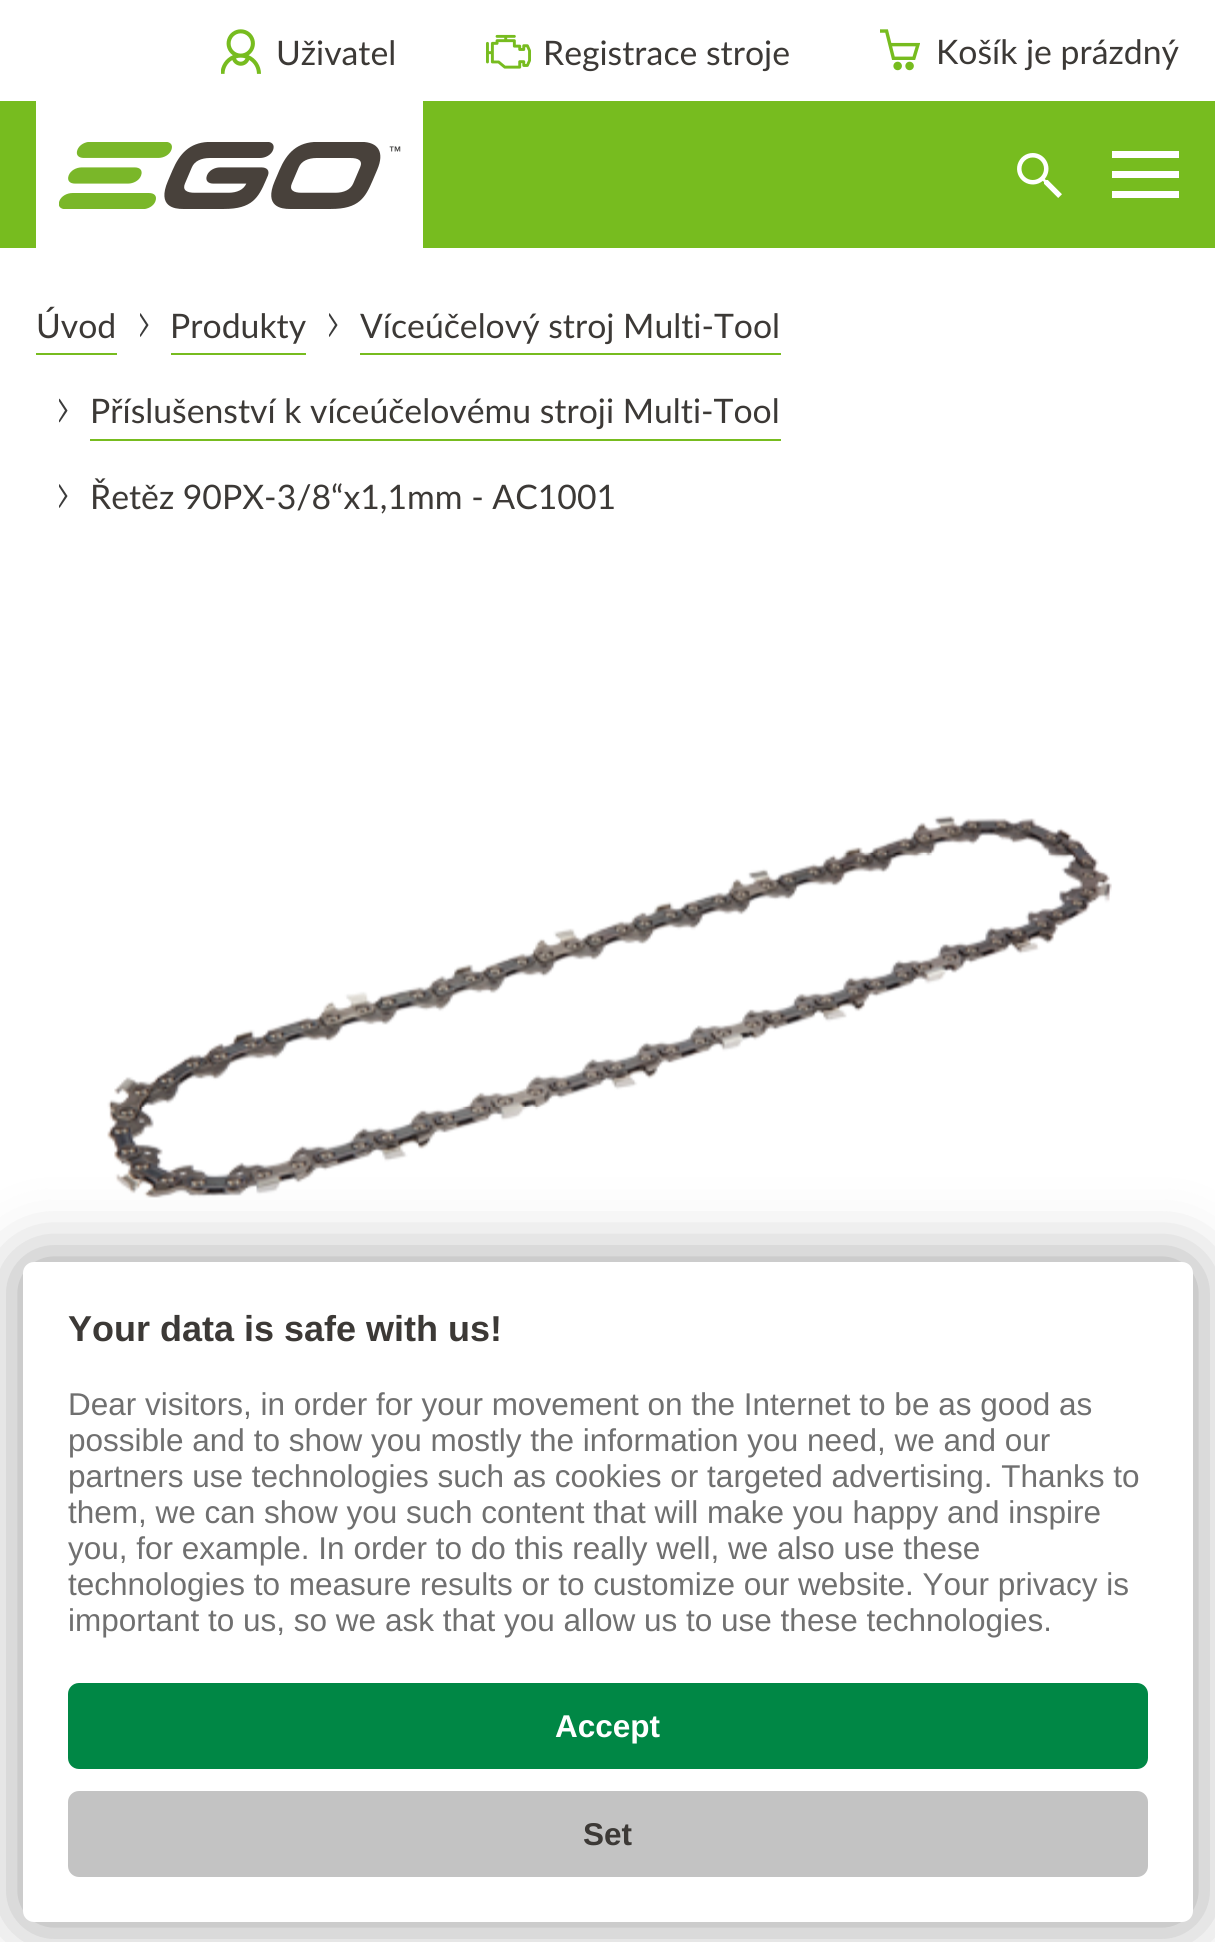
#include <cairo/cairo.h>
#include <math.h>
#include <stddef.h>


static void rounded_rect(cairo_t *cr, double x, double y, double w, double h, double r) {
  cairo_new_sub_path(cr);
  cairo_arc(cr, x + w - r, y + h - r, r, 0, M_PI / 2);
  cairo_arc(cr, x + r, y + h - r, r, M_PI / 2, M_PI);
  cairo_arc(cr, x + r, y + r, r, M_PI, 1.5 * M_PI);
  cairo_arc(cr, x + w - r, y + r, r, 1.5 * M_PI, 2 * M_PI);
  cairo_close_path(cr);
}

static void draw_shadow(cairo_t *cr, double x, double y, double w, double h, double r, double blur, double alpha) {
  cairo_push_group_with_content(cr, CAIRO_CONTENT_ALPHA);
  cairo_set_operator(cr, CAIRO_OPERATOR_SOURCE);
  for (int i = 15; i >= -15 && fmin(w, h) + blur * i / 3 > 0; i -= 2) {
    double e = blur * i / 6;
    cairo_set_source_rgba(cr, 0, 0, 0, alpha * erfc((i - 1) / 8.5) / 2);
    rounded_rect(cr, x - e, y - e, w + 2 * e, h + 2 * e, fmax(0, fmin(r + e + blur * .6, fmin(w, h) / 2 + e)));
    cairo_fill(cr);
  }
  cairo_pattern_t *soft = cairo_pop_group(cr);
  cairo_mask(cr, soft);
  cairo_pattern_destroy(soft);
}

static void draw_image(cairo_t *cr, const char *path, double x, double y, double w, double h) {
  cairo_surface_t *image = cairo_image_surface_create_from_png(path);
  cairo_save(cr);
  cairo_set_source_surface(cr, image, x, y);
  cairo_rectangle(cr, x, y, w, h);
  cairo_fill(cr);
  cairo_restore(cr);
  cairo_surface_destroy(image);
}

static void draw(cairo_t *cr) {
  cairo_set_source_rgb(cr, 1, 1, 1);
  cairo_paint(cr);
  draw_image(cr, "images/1.png", 221, 29, 40, 45);
  draw_image(cr, "images/2.png", 486, 34, 45, 35);
  draw_image(cr, "images/3.png", 880, 29, 40, 42);
  cairo_set_source_rgb(cr, 119 / 255.0, 188 / 255.0, 31 / 255.0);
  cairo_rectangle(cr, 0, 101, 1215, 147);
  cairo_fill(cr);
  cairo_set_source_rgb(cr, 1, 1, 1);
  cairo_rectangle(cr, 36, 101, 387, 147);
  cairo_fill(cr);
  draw_image(cr, "images/4.png", 59, 142, 342, 67);
  draw_image(cr, "images/5.png", 1017, 153, 45, 45);
  cairo_rectangle(cr, 1112, 151, 67, 7);
  cairo_fill(cr);
  cairo_rectangle(cr, 1112, 171, 67, 7);
  cairo_fill(cr);
  cairo_rectangle(cr, 1112, 191, 67, 7);
  cairo_fill(cr);
  cairo_set_source_rgb(cr, 119 / 255.0, 188 / 255.0, 31 / 255.0);
  cairo_rectangle(cr, 36, 353, 81, 2);
  cairo_fill(cr);
  cairo_save(cr);
  cairo_rectangle(cr, 140, 313, 9, 25);
  cairo_clip(cr);
  cairo_set_source_rgb(cr, 59 / 255.0, 59 / 255.0, 59 / 255.0);
  cairo_new_path(cr);
  cairo_move_to(cr, 148.5, 325);
  cairo_line_to(cr, 140.5, 313);
  cairo_line_to(cr, 139.5, 315);
  cairo_line_to(cr, 146, 325);
  cairo_line_to(cr, 139.5, 335.5);
  cairo_line_to(cr, 140.5, 337);
  cairo_line_to(cr, 148, 326);
  cairo_close_path(cr);
  cairo_fill(cr);
  cairo_restore(cr);
  cairo_rectangle(cr, 171, 353, 135, 2);
  cairo_fill(cr);
  cairo_save(cr);
  cairo_rectangle(cr, 329, 313, 9, 25);
  cairo_clip(cr);
  cairo_set_source_rgb(cr, 59 / 255.0, 59 / 255.0, 59 / 255.0);
  cairo_new_path(cr);
  cairo_move_to(cr, 337.5, 325);
  cairo_line_to(cr, 329.5, 313);
  cairo_line_to(cr, 328.5, 315);
  cairo_line_to(cr, 335, 325);
  cairo_line_to(cr, 328.5, 335.5);
  cairo_line_to(cr, 329.5, 337);
  cairo_line_to(cr, 337, 326);
  cairo_close_path(cr);
  cairo_fill(cr);
  cairo_restore(cr);
  cairo_rectangle(cr, 360, 353, 421, 2);
  cairo_fill(cr);
  cairo_save(cr);
  cairo_rectangle(cr, 59, 398, 9, 25);
  cairo_clip(cr);
  cairo_set_source_rgb(cr, 59 / 255.0, 59 / 255.0, 59 / 255.0);
  cairo_new_path(cr);
  cairo_move_to(cr, 67.5, 410.5);
  cairo_line_to(cr, 59.5, 398.5);
  cairo_line_to(cr, 58.5, 400.5);
  cairo_line_to(cr, 65, 410.5);
  cairo_line_to(cr, 58.5, 421);
  cairo_line_to(cr, 59.5, 422.5);
  cairo_line_to(cr, 67, 411.5);
  cairo_close_path(cr);
  cairo_fill(cr);
  cairo_restore(cr);
  cairo_rectangle(cr, 90, 439, 691, 2);
  cairo_fill(cr);
  cairo_save(cr);
  cairo_rectangle(cr, 59, 484, 9, 25);
  cairo_clip(cr);
  cairo_set_source_rgb(cr, 59 / 255.0, 59 / 255.0, 59 / 255.0);
  cairo_new_path(cr);
  cairo_move_to(cr, 67.5, 496);
  cairo_line_to(cr, 59.5, 484);
  cairo_line_to(cr, 58.5, 486);
  cairo_line_to(cr, 65, 496);
  cairo_line_to(cr, 58.5, 506.5);
  cairo_line_to(cr, 59.5, 508);
  cairo_line_to(cr, 67, 497);
  cairo_close_path(cr);
  cairo_fill(cr);
  cairo_restore(cr);
  draw_image(cr, "images/6.png", 107, 815, 1005, 383);
  cairo_set_source_rgb(cr, 0, 0, 0);
  draw_shadow(cr, 23, 1262, 1170, 660, 11, 34, 0.4);
  cairo_set_source_rgb(cr, 1, 1, 1);
  rounded_rect(cr, 23, 1262, 1170, 660, 11);
  cairo_fill(cr);
  cairo_set_source_rgb(cr, 0, 135 / 255.0, 69 / 255.0);
  rounded_rect(cr, 68, 1683, 1080, 86, 11);
  cairo_fill(cr);
  cairo_set_source_rgb(cr, 195 / 255.0, 195 / 255.0, 195 / 255.0);
  rounded_rect(cr, 68, 1791, 1080, 86, 11);
  cairo_fill(cr);
  cairo_select_font_face(cr, "Lato", CAIRO_FONT_SLANT_NORMAL, CAIRO_FONT_WEIGHT_NORMAL);
  cairo_set_font_size(cr, 33.75);
  cairo_set_source_rgb(cr, 60 / 255.0, 57 / 255.0, 54 / 255.0);
  cairo_move_to(cr, 276, 65);
  cairo_show_text(cr, "Uživatel");
  cairo_move_to(cr, 543, 65);
  cairo_show_text(cr, "Registrace stroje");
  cairo_move_to(cr, 936, 64);
  cairo_show_text(cr, "Košík je prázdný");
  cairo_move_to(cr, 36, 338);
  cairo_show_text(cr, "Úvod");
  cairo_move_to(cr, 170, 338);
  cairo_show_text(cr, "Produkty");
  cairo_move_to(cr, 360, 338);
  cairo_show_text(cr, "Víceúčelový stroj Multi-Tool");
  cairo_move_to(cr, 90, 423);
  cairo_show_text(cr, "Příslušenství k víceúčelovému stroji Multi-Tool");
  cairo_move_to(cr, 90, 509);
  cairo_show_text(cr, "Řetěz 90PX-3/8“x1,1mm - AC1001");
  cairo_select_font_face(cr, "Liberation Sans", CAIRO_FONT_SLANT_NORMAL, CAIRO_FONT_WEIGHT_BOLD);
  cairo_set_font_size(cr, 36);
  cairo_move_to(cr, 68, 1341);
  cairo_show_text(cr, "Your data is safe with us!");
  cairo_select_font_face(cr, "Liberation Sans", CAIRO_FONT_SLANT_NORMAL, CAIRO_FONT_WEIGHT_NORMAL);
  cairo_set_font_size(cr, 31.5);
  cairo_set_source_rgb(cr, 112 / 255.0, 112 / 255.0, 112 / 255.0);
  cairo_move_to(cr, 68, 1415);
  cairo_show_text(cr, "Dear visitors, in order for your movement on the Internet to be as good as");
  cairo_move_to(cr, 68, 1451);
  cairo_show_text(cr, "possible and to show you mostly the information you need, we and our");
  cairo_move_to(cr, 68, 1487);
  cairo_show_text(cr, "partners use technologies such as cookies or targeted advertising. Thanks to");
  cairo_move_to(cr, 68, 1523);
  cairo_show_text(cr, "them, we can show you such content that will make you happy and inspire");
  cairo_move_to(cr, 68, 1559);
  cairo_show_text(cr, "you, for example. In order to do this really well, we also use these");
  cairo_move_to(cr, 68, 1595);
  cairo_show_text(cr, "technologies to measure results or to customize our website. Your privacy is");
  cairo_move_to(cr, 68, 1631);
  cairo_show_text(cr, "important to us, so we ask that you allow us to use these technologies.");
  cairo_select_font_face(cr, "Liberation Sans", CAIRO_FONT_SLANT_NORMAL, CAIRO_FONT_WEIGHT_BOLD);
  cairo_set_source_rgb(cr, 1, 1, 1);
  cairo_move_to(cr, 555, 1737);
  cairo_show_text(cr, "Accept");
  cairo_set_source_rgb(cr, 60 / 255.0, 57 / 255.0, 54 / 255.0);
  cairo_move_to(cr, 583, 1845);
  cairo_show_text(cr, "Set");
}

int main(void) {
  cairo_surface_t *surface = cairo_image_surface_create(CAIRO_FORMAT_RGB24, 1215, 1942);
  cairo_t *cr = cairo_create(surface);
  cairo_font_options_t *options = cairo_font_options_create();
  cairo_font_options_set_hint_metrics(options, CAIRO_HINT_METRICS_OFF);
  cairo_font_options_set_hint_style(options, CAIRO_HINT_STYLE_NONE);
  cairo_set_font_options(cr, options);
  cairo_set_miter_limit(cr, 4);
  draw(cr);
  cairo_surface_write_to_png(surface, "out.png");
  cairo_font_options_destroy(options);
  cairo_destroy(cr);
  cairo_surface_destroy(surface);
  return 0;
}
